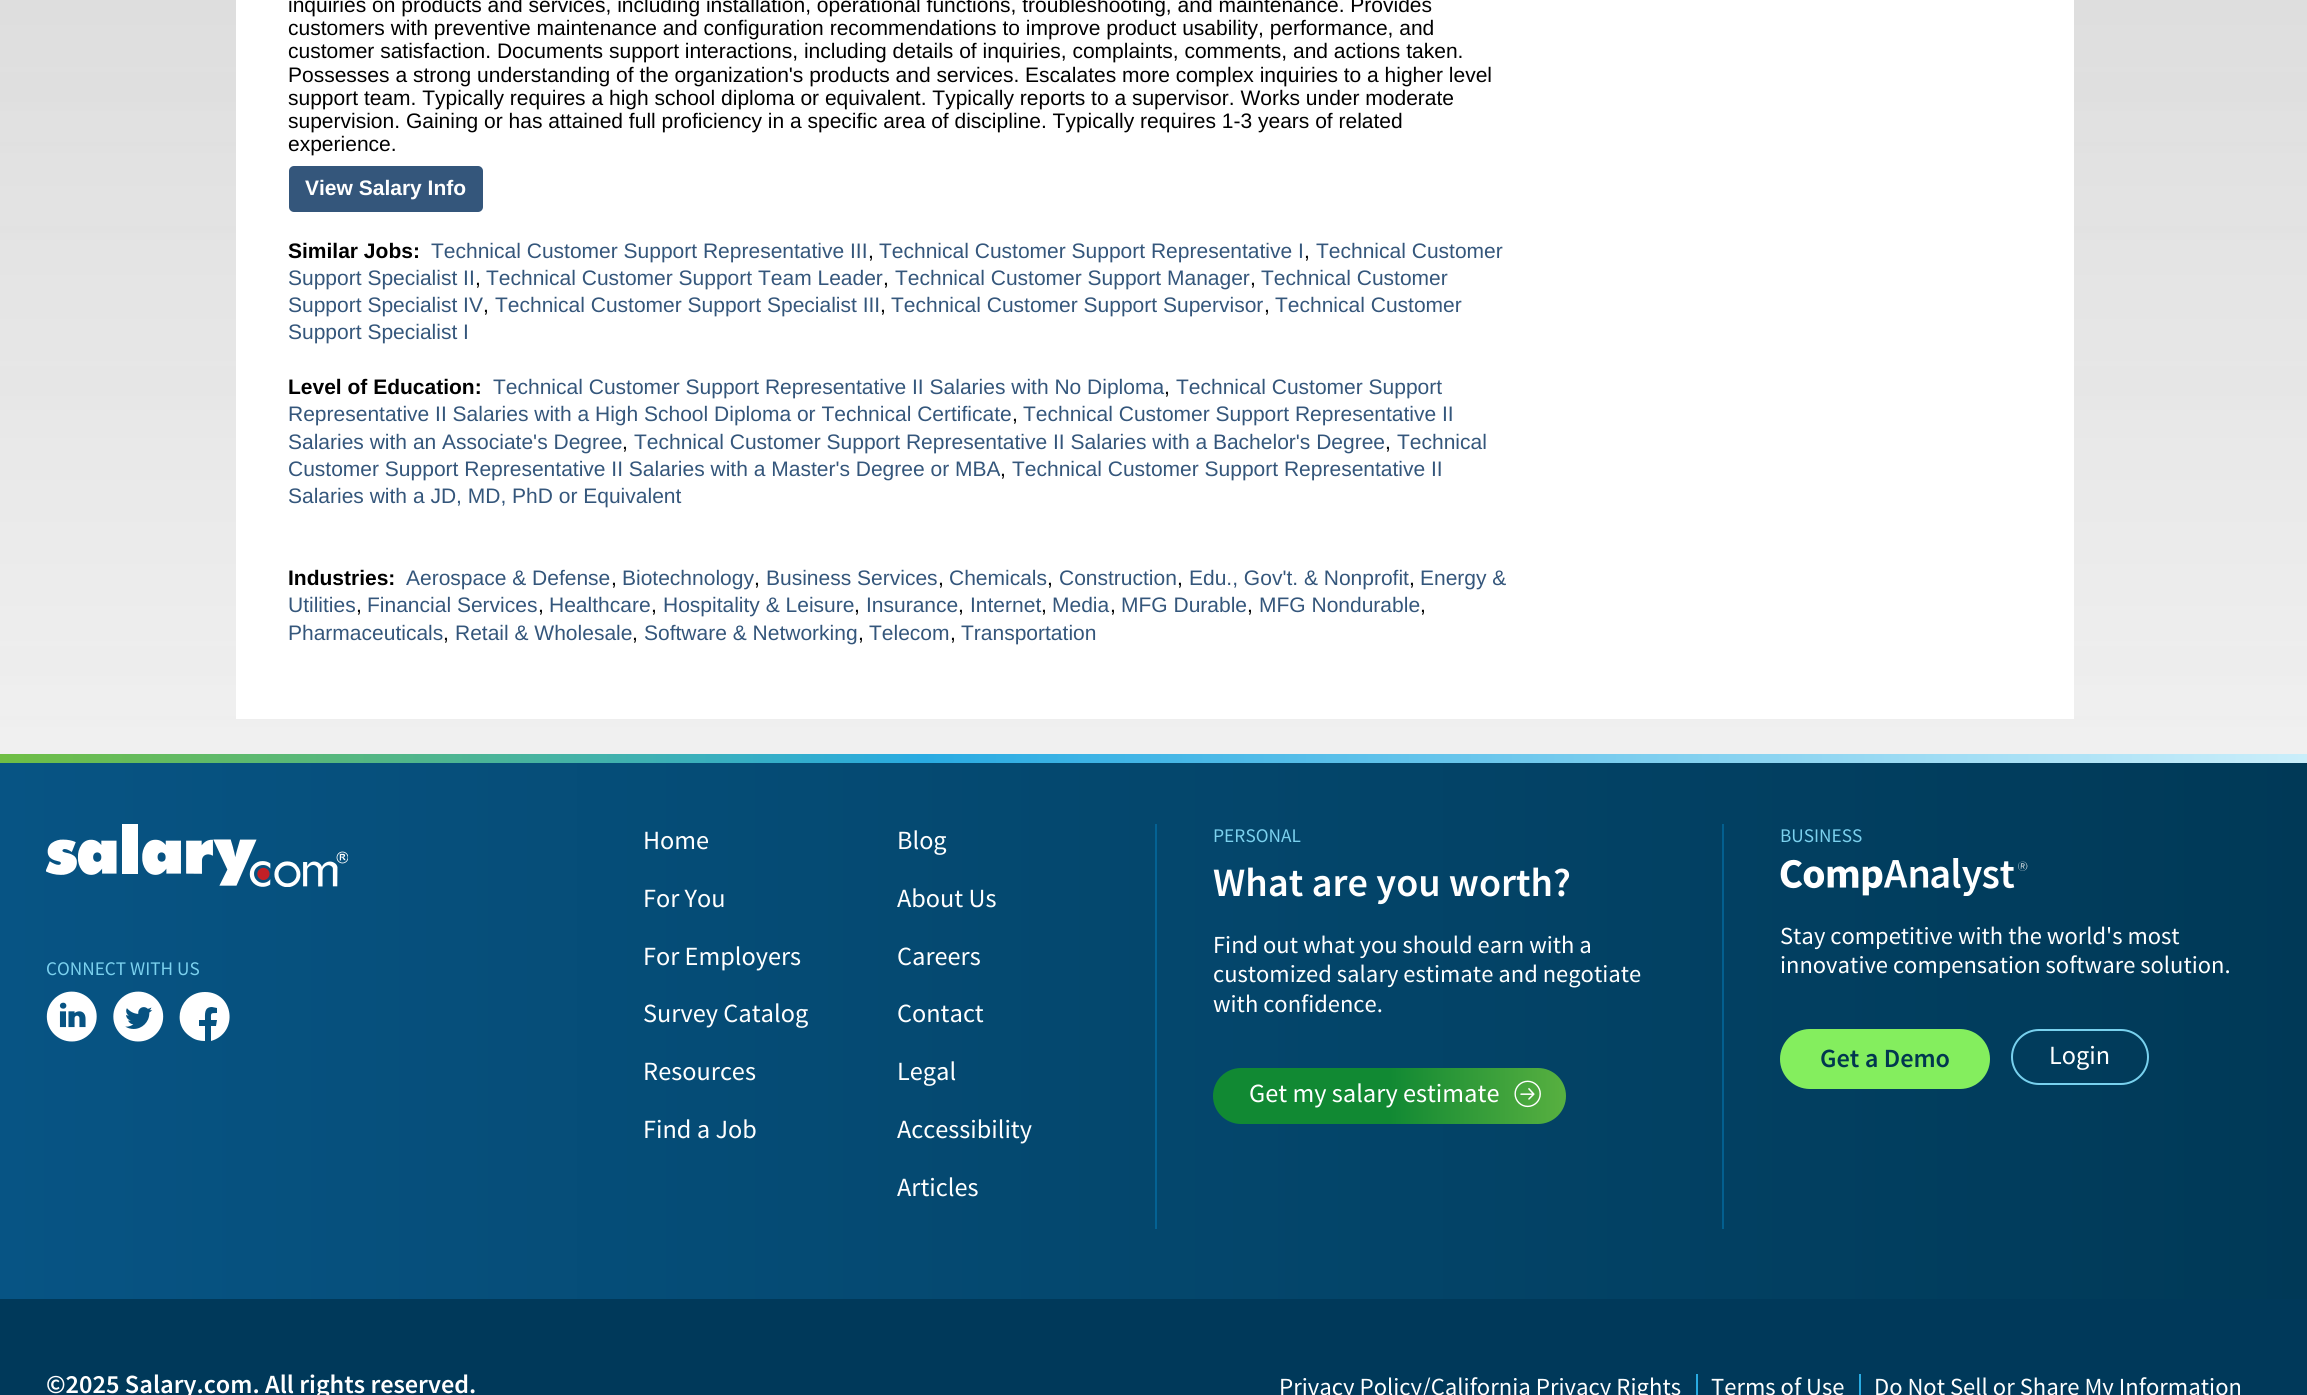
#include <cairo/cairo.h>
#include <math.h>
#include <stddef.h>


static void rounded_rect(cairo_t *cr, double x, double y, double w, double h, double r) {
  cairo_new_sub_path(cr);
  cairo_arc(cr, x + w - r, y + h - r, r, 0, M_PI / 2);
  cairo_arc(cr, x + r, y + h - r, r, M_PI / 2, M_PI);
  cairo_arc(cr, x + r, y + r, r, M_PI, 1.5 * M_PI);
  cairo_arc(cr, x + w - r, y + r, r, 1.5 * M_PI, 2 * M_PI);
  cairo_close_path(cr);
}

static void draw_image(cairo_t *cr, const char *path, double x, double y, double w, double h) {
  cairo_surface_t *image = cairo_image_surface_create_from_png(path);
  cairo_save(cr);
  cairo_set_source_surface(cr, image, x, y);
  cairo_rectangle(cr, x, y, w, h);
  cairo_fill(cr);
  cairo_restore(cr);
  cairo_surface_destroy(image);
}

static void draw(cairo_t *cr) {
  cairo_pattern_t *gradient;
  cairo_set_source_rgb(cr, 1, 1, 1);
  cairo_paint(cr);
  draw_image(cr, "images/1.png", 0, 0, 2307, 754);
  cairo_set_source_rgb(cr, 1, 1, 1);
  cairo_rectangle(cr, 236, 0, 1838, 719);
  cairo_fill(cr);
  cairo_set_source_rgb(cr, 52 / 255.0, 86 / 255.0, 123 / 255.0);
  rounded_rect(cr, 289, 166, 194, 46, 5);
  cairo_fill(cr);
  gradient = cairo_pattern_create_linear(0, 1026, 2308, 1026);
  cairo_pattern_add_color_stop_rgba(gradient, 0, 7 / 255.0, 84 / 255.0, 132 / 255.0, 1);
  cairo_pattern_add_color_stop_rgba(gradient, 0.5, 4 / 255.0, 71 / 255.0, 109 / 255.0, 1);
  cairo_pattern_add_color_stop_rgba(gradient, 1, 0, 57 / 255.0, 87 / 255.0, 1);
  cairo_set_source(cr, gradient);
  cairo_pattern_destroy(gradient);
  cairo_rectangle(cr, 0, 763, 2307, 536);
  cairo_fill(cr);
  gradient = cairo_pattern_create_linear(0, 759, 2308, 759);
  cairo_pattern_add_color_stop_rgba(gradient, 0, 111 / 255.0, 190 / 255.0, 68 / 255.0, 1);
  cairo_pattern_add_color_stop_rgba(gradient, 0.4, 41 / 255.0, 171 / 255.0, 226 / 255.0, 1);
  cairo_pattern_add_color_stop_rgba(gradient, 1, 202 / 255.0, 238 / 255.0, 250 / 255.0, 1);
  cairo_set_source(cr, gradient);
  cairo_pattern_destroy(gradient);
  cairo_rectangle(cr, 0, 754, 2307, 9);
  cairo_fill(cr);
  draw_image(cr, "images/2.png", 46, 824, 302, 63);
  draw_image(cr, "images/3.png", 46, 991, 51, 51);
  draw_image(cr, "images/4.png", 113, 991, 51, 51);
  cairo_set_source_rgb(cr, 1, 1, 1);
  cairo_new_path(cr);
  cairo_move_to(cr, 205, 992);
  cairo_curve_to(cr, 180, 992, 170, 1024, 191, 1037);
  cairo_curve_to(cr, 195, 1040, 200, 1041, 205, 1041);
  cairo_line_to(cr, 205, 1026);
  cairo_line_to(cr, 199, 1026);
  cairo_line_to(cr, 199, 1020);
  cairo_line_to(cr, 205, 1020);
  cairo_curve_to(cr, 205, 1014, 204, 1007, 212, 1007);
  cairo_line_to(cr, 217, 1008);
  cairo_line_to(cr, 217, 1013);
  cairo_curve_to(cr, 210, 1013, 211, 1013, 211, 1020);
  cairo_line_to(cr, 217, 1020);
  cairo_line_to(cr, 216, 1026);
  cairo_line_to(cr, 211, 1026);
  cairo_line_to(cr, 211, 1041);
  cairo_curve_to(cr, 239, 1033, 234, 992, 205, 992);
  cairo_close_path(cr);
  cairo_fill(cr);
  cairo_set_source_rgb(cr, 4 / 255.0, 98 / 255.0, 148 / 255.0);
  cairo_rectangle(cr, 1155, 824, 2, 405);
  cairo_fill(cr);
  gradient = cairo_pattern_create_linear(1213, 1096, 1566, 1096);
  cairo_pattern_add_color_stop_rgba(gradient, 0, 17 / 255.0, 137 / 255.0, 51 / 255.0, 1);
  cairo_pattern_add_color_stop_rgba(gradient, 0.5, 17 / 255.0, 137 / 255.0, 51 / 255.0, 1);
  cairo_pattern_add_color_stop_rgba(gradient, 1, 88 / 255.0, 176 / 255.0, 64 / 255.0, 1);
  cairo_set_source(cr, gradient);
  cairo_pattern_destroy(gradient);
  rounded_rect(cr, 1213, 1068, 353, 56, 28);
  cairo_fill(cr);
  draw_image(cr, "images/5.png", 1514, 1080, 27, 28);
  cairo_set_source_rgb(cr, 3 / 255.0, 95 / 255.0, 143 / 255.0);
  cairo_rectangle(cr, 1722, 824, 2, 405);
  cairo_fill(cr);
  draw_image(cr, "images/6.png", 1780, 858, 248, 38);
  cairo_set_source_rgb(cr, 132 / 255.0, 238 / 255.0, 94 / 255.0);
  rounded_rect(cr, 1780, 1029, 210, 60, 30);
  cairo_fill(cr);
  rounded_rect(cr, 2012, 1030, 136, 54, 27);
  cairo_set_source_rgb(cr, 120 / 255.0, 209 / 255.0, 238 / 255.0);
  cairo_stroke(cr);
  cairo_set_source_rgb(cr, 0, 57 / 255.0, 90 / 255.0);
  cairo_rectangle(cr, 0, 1299, 2307, 96);
  cairo_fill(cr);
  cairo_set_source_rgb(cr, 41 / 255.0, 171 / 255.0, 226 / 255.0);
  cairo_rectangle(cr, 1696, 1374, 2, 21);
  cairo_fill(cr);
  cairo_rectangle(cr, 1859, 1374, 2, 21);
  cairo_fill(cr);
  cairo_select_font_face(cr, "Liberation Sans", CAIRO_FONT_SLANT_NORMAL, CAIRO_FONT_WEIGHT_NORMAL);
  cairo_set_font_size(cr, 21);
  cairo_set_source_rgb(cr, 0, 0, 0);
  cairo_move_to(cr, 288, 12);
  cairo_show_text(cr, "inquiries on products and services, including installation, operational functions, troubleshooting, and maintenance. Provides");
  cairo_move_to(cr, 288, 35);
  cairo_show_text(cr, "customers with preventive maintenance and configuration recommendations to improve product usability, performance, and");
  cairo_move_to(cr, 288, 58);
  cairo_show_text(cr, "customer satisfaction. Documents support interactions, including details of inquiries, complaints, comments, and actions taken.");
  cairo_move_to(cr, 288, 82);
  cairo_show_text(cr, "Possesses a strong understanding of the organization's products and services. Escalates more complex inquiries to a higher level");
  cairo_move_to(cr, 288, 105);
  cairo_show_text(cr, "support team. Typically requires a high school diploma or equivalent. Typically reports to a supervisor. Works under moderate");
  cairo_move_to(cr, 288, 128);
  cairo_show_text(cr, "supervision. Gaining or has attained full proficiency in a specific area of discipline. Typically requires 1-3 years of related");
  cairo_move_to(cr, 288, 151);
  cairo_show_text(cr, "experience.");
  cairo_select_font_face(cr, "Liberation Sans", CAIRO_FONT_SLANT_NORMAL, CAIRO_FONT_WEIGHT_BOLD);
  cairo_set_source_rgb(cr, 1, 1, 1);
  cairo_move_to(cr, 305, 195);
  cairo_show_text(cr, "View Salary Info");
  cairo_set_source_rgb(cr, 0, 0, 0);
  cairo_move_to(cr, 288, 258);
  cairo_show_text(cr, "Similar Jobs:");
  cairo_select_font_face(cr, "Liberation Sans", CAIRO_FONT_SLANT_NORMAL, CAIRO_FONT_WEIGHT_NORMAL);
  cairo_set_source_rgb(cr, 52 / 255.0, 86 / 255.0, 123 / 255.0);
  cairo_move_to(cr, 431, 258);
  cairo_show_text(cr, "Technical Customer Support Representative III");
  cairo_set_source_rgb(cr, 0, 0, 0);
  cairo_move_to(cr, 868, 258);
  cairo_show_text(cr, ",");
  cairo_set_source_rgb(cr, 52 / 255.0, 86 / 255.0, 123 / 255.0);
  cairo_move_to(cr, 879, 258);
  cairo_show_text(cr, "Technical Customer Support Representative I");
  cairo_set_source_rgb(cr, 0, 0, 0);
  cairo_move_to(cr, 1304, 258);
  cairo_show_text(cr, ",");
  cairo_set_source_rgb(cr, 52 / 255.0, 86 / 255.0, 123 / 255.0);
  cairo_move_to(cr, 1316, 258);
  cairo_show_text(cr, "Technical Customer");
  cairo_move_to(cr, 288, 285);
  cairo_show_text(cr, "Support Specialist II");
  cairo_set_source_rgb(cr, 0, 0, 0);
  cairo_move_to(cr, 475, 285);
  cairo_show_text(cr, ",");
  cairo_set_source_rgb(cr, 52 / 255.0, 86 / 255.0, 123 / 255.0);
  cairo_move_to(cr, 486, 285);
  cairo_show_text(cr, "Technical Customer Support Team Leader");
  cairo_set_source_rgb(cr, 0, 0, 0);
  cairo_move_to(cr, 883, 285);
  cairo_show_text(cr, ",");
  cairo_set_source_rgb(cr, 52 / 255.0, 86 / 255.0, 123 / 255.0);
  cairo_move_to(cr, 895, 285);
  cairo_show_text(cr, "Technical Customer Support Manager");
  cairo_set_source_rgb(cr, 0, 0, 0);
  cairo_move_to(cr, 1250, 285);
  cairo_show_text(cr, ",");
  cairo_set_source_rgb(cr, 52 / 255.0, 86 / 255.0, 123 / 255.0);
  cairo_move_to(cr, 1261, 285);
  cairo_show_text(cr, "Technical Customer");
  cairo_move_to(cr, 288, 312);
  cairo_show_text(cr, "Support Specialist IV");
  cairo_set_source_rgb(cr, 0, 0, 0);
  cairo_move_to(cr, 483, 312);
  cairo_show_text(cr, ",");
  cairo_set_source_rgb(cr, 52 / 255.0, 86 / 255.0, 123 / 255.0);
  cairo_move_to(cr, 495, 312);
  cairo_show_text(cr, "Technical Customer Support Specialist III");
  cairo_set_source_rgb(cr, 0, 0, 0);
  cairo_move_to(cr, 880, 312);
  cairo_show_text(cr, ",");
  cairo_set_source_rgb(cr, 52 / 255.0, 86 / 255.0, 123 / 255.0);
  cairo_move_to(cr, 891, 312);
  cairo_show_text(cr, "Technical Customer Support Supervisor");
  cairo_set_source_rgb(cr, 0, 0, 0);
  cairo_move_to(cr, 1264, 312);
  cairo_show_text(cr, ",");
  cairo_set_source_rgb(cr, 52 / 255.0, 86 / 255.0, 123 / 255.0);
  cairo_move_to(cr, 1275, 312);
  cairo_show_text(cr, "Technical Customer");
  cairo_move_to(cr, 288, 339);
  cairo_show_text(cr, "Support Specialist I");
  cairo_select_font_face(cr, "Liberation Sans", CAIRO_FONT_SLANT_NORMAL, CAIRO_FONT_WEIGHT_BOLD);
  cairo_set_source_rgb(cr, 0, 0, 0);
  cairo_move_to(cr, 288, 394);
  cairo_show_text(cr, "Level of Education:");
  cairo_select_font_face(cr, "Liberation Sans", CAIRO_FONT_SLANT_NORMAL, CAIRO_FONT_WEIGHT_NORMAL);
  cairo_set_source_rgb(cr, 52 / 255.0, 86 / 255.0, 123 / 255.0);
  cairo_move_to(cr, 493, 394);
  cairo_show_text(cr, "Technical Customer Support Representative II Salaries with No Diploma");
  cairo_set_source_rgb(cr, 0, 0, 0);
  cairo_move_to(cr, 1164, 394);
  cairo_show_text(cr, ",");
  cairo_set_source_rgb(cr, 52 / 255.0, 86 / 255.0, 123 / 255.0);
  cairo_move_to(cr, 1176, 394);
  cairo_show_text(cr, "Technical Customer Support");
  cairo_move_to(cr, 288, 421);
  cairo_show_text(cr, "Representative II Salaries with a High School Diploma or Technical Certificate");
  cairo_set_source_rgb(cr, 0, 0, 0);
  cairo_move_to(cr, 1012, 421);
  cairo_show_text(cr, ",");
  cairo_set_source_rgb(cr, 52 / 255.0, 86 / 255.0, 123 / 255.0);
  cairo_move_to(cr, 1023, 421);
  cairo_show_text(cr, "Technical Customer Support Representative II");
  cairo_move_to(cr, 288, 449);
  cairo_show_text(cr, "Salaries with an Associate's Degree");
  cairo_set_source_rgb(cr, 0, 0, 0);
  cairo_move_to(cr, 622, 449);
  cairo_show_text(cr, ",");
  cairo_set_source_rgb(cr, 52 / 255.0, 86 / 255.0, 123 / 255.0);
  cairo_move_to(cr, 634, 449);
  cairo_show_text(cr, "Technical Customer Support Representative II Salaries with a Bachelor's Degree");
  cairo_set_source_rgb(cr, 0, 0, 0);
  cairo_move_to(cr, 1385, 449);
  cairo_show_text(cr, ",");
  cairo_set_source_rgb(cr, 52 / 255.0, 86 / 255.0, 123 / 255.0);
  cairo_move_to(cr, 1397, 449);
  cairo_show_text(cr, "Technical");
  cairo_move_to(cr, 288, 476);
  cairo_show_text(cr, "Customer Support Representative II Salaries with a Master's Degree or MBA");
  cairo_set_source_rgb(cr, 0, 0, 0);
  cairo_move_to(cr, 1000, 476);
  cairo_show_text(cr, ",");
  cairo_set_source_rgb(cr, 52 / 255.0, 86 / 255.0, 123 / 255.0);
  cairo_move_to(cr, 1012, 476);
  cairo_show_text(cr, "Technical Customer Support Representative II");
  cairo_move_to(cr, 288, 503);
  cairo_show_text(cr, "Salaries with a JD, MD, PhD or Equivalent");
  cairo_select_font_face(cr, "Liberation Sans", CAIRO_FONT_SLANT_NORMAL, CAIRO_FONT_WEIGHT_BOLD);
  cairo_set_source_rgb(cr, 0, 0, 0);
  cairo_move_to(cr, 288, 585);
  cairo_show_text(cr, "Industries:");
  cairo_select_font_face(cr, "Liberation Sans", CAIRO_FONT_SLANT_NORMAL, CAIRO_FONT_WEIGHT_NORMAL);
  cairo_set_source_rgb(cr, 52 / 255.0, 86 / 255.0, 123 / 255.0);
  cairo_move_to(cr, 406, 585);
  cairo_show_text(cr, "Aerospace & Defense");
  cairo_set_source_rgb(cr, 0, 0, 0);
  cairo_move_to(cr, 611, 585);
  cairo_show_text(cr, ",");
  cairo_set_source_rgb(cr, 52 / 255.0, 86 / 255.0, 123 / 255.0);
  cairo_move_to(cr, 622, 585);
  cairo_show_text(cr, "Biotechnology");
  cairo_set_source_rgb(cr, 0, 0, 0);
  cairo_move_to(cr, 754, 585);
  cairo_show_text(cr, ",");
  cairo_set_source_rgb(cr, 52 / 255.0, 86 / 255.0, 123 / 255.0);
  cairo_move_to(cr, 766, 585);
  cairo_show_text(cr, "Business Services");
  cairo_set_source_rgb(cr, 0, 0, 0);
  cairo_move_to(cr, 938, 585);
  cairo_show_text(cr, ",");
  cairo_set_source_rgb(cr, 52 / 255.0, 86 / 255.0, 123 / 255.0);
  cairo_move_to(cr, 949, 585);
  cairo_show_text(cr, "Chemicals");
  cairo_set_source_rgb(cr, 0, 0, 0);
  cairo_move_to(cr, 1047, 585);
  cairo_show_text(cr, ",");
  cairo_set_source_rgb(cr, 52 / 255.0, 86 / 255.0, 123 / 255.0);
  cairo_move_to(cr, 1059, 585);
  cairo_show_text(cr, "Construction");
  cairo_set_source_rgb(cr, 0, 0, 0);
  cairo_move_to(cr, 1177, 585);
  cairo_show_text(cr, ",");
  cairo_set_source_rgb(cr, 52 / 255.0, 86 / 255.0, 123 / 255.0);
  cairo_move_to(cr, 1189, 585);
  cairo_show_text(cr, "Edu., Gov't. & Nonprofit");
  cairo_set_source_rgb(cr, 0, 0, 0);
  cairo_move_to(cr, 1409, 585);
  cairo_show_text(cr, ",");
  cairo_set_source_rgb(cr, 52 / 255.0, 86 / 255.0, 123 / 255.0);
  cairo_move_to(cr, 1420, 585);
  cairo_show_text(cr, "Energy &");
  cairo_move_to(cr, 288, 612);
  cairo_show_text(cr, "Utilities");
  cairo_set_source_rgb(cr, 0, 0, 0);
  cairo_move_to(cr, 356, 612);
  cairo_show_text(cr, ",");
  cairo_set_source_rgb(cr, 52 / 255.0, 86 / 255.0, 123 / 255.0);
  cairo_move_to(cr, 367, 612);
  cairo_show_text(cr, "Financial Services");
  cairo_set_source_rgb(cr, 0, 0, 0);
  cairo_move_to(cr, 538, 612);
  cairo_show_text(cr, ",");
  cairo_set_source_rgb(cr, 52 / 255.0, 86 / 255.0, 123 / 255.0);
  cairo_move_to(cr, 549, 612);
  cairo_show_text(cr, "Healthcare");
  cairo_set_source_rgb(cr, 0, 0, 0);
  cairo_move_to(cr, 651, 612);
  cairo_show_text(cr, ",");
  cairo_set_source_rgb(cr, 52 / 255.0, 86 / 255.0, 123 / 255.0);
  cairo_move_to(cr, 663, 612);
  cairo_show_text(cr, "Hospitality & Leisure");
  cairo_set_source_rgb(cr, 0, 0, 0);
  cairo_move_to(cr, 854, 612);
  cairo_show_text(cr, ",");
  cairo_set_source_rgb(cr, 52 / 255.0, 86 / 255.0, 123 / 255.0);
  cairo_move_to(cr, 866, 612);
  cairo_show_text(cr, "Insurance");
  cairo_set_source_rgb(cr, 0, 0, 0);
  cairo_move_to(cr, 958, 612);
  cairo_show_text(cr, ",");
  cairo_set_source_rgb(cr, 52 / 255.0, 86 / 255.0, 123 / 255.0);
  cairo_move_to(cr, 970, 612);
  cairo_show_text(cr, "Internet");
  cairo_set_source_rgb(cr, 0, 0, 0);
  cairo_move_to(cr, 1041, 612);
  cairo_show_text(cr, ",");
  cairo_set_source_rgb(cr, 52 / 255.0, 86 / 255.0, 123 / 255.0);
  cairo_move_to(cr, 1052, 612);
  cairo_show_text(cr, "Media");
  cairo_set_source_rgb(cr, 0, 0, 0);
  cairo_move_to(cr, 1110, 612);
  cairo_show_text(cr, ",");
  cairo_set_source_rgb(cr, 52 / 255.0, 86 / 255.0, 123 / 255.0);
  cairo_move_to(cr, 1121, 612);
  cairo_show_text(cr, "MFG Durable");
  cairo_set_source_rgb(cr, 0, 0, 0);
  cairo_move_to(cr, 1247, 612);
  cairo_show_text(cr, ",");
  cairo_set_source_rgb(cr, 52 / 255.0, 86 / 255.0, 123 / 255.0);
  cairo_move_to(cr, 1259, 612);
  cairo_show_text(cr, "MFG Nondurable");
  cairo_set_source_rgb(cr, 0, 0, 0);
  cairo_move_to(cr, 1420, 612);
  cairo_show_text(cr, ",");
  cairo_set_source_rgb(cr, 52 / 255.0, 86 / 255.0, 123 / 255.0);
  cairo_move_to(cr, 288, 640);
  cairo_show_text(cr, "Pharmaceuticals");
  cairo_set_source_rgb(cr, 0, 0, 0);
  cairo_move_to(cr, 443, 640);
  cairo_show_text(cr, ",");
  cairo_set_source_rgb(cr, 52 / 255.0, 86 / 255.0, 123 / 255.0);
  cairo_move_to(cr, 455, 640);
  cairo_show_text(cr, "Retail & Wholesale");
  cairo_set_source_rgb(cr, 0, 0, 0);
  cairo_move_to(cr, 632, 640);
  cairo_show_text(cr, ",");
  cairo_set_source_rgb(cr, 52 / 255.0, 86 / 255.0, 123 / 255.0);
  cairo_move_to(cr, 644, 640);
  cairo_show_text(cr, "Software & Networking");
  cairo_set_source_rgb(cr, 0, 0, 0);
  cairo_move_to(cr, 858, 640);
  cairo_show_text(cr, ",");
  cairo_set_source_rgb(cr, 52 / 255.0, 86 / 255.0, 123 / 255.0);
  cairo_move_to(cr, 869, 640);
  cairo_show_text(cr, "Telecom");
  cairo_set_source_rgb(cr, 0, 0, 0);
  cairo_move_to(cr, 950, 640);
  cairo_show_text(cr, ",");
  cairo_set_source_rgb(cr, 52 / 255.0, 86 / 255.0, 123 / 255.0);
  cairo_move_to(cr, 961, 640);
  cairo_show_text(cr, "Transportation");
  cairo_select_font_face(cr, "Source Sans Pro", CAIRO_FONT_SLANT_NORMAL, CAIRO_FONT_WEIGHT_NORMAL);
  cairo_set_font_size(cr, 19.25);
  cairo_set_source_rgb(cr, 123 / 255.0, 209 / 255.0, 238 / 255.0);
  cairo_move_to(cr, 46, 975);
  cairo_show_text(cr, "CONNECT WITH US");
  cairo_set_font_size(cr, 26.25);
  cairo_set_source_rgb(cr, 1, 1, 1);
  cairo_move_to(cr, 643, 849);
  cairo_show_text(cr, "Home");
  cairo_move_to(cr, 643, 907);
  cairo_show_text(cr, "For You");
  cairo_move_to(cr, 643, 965);
  cairo_show_text(cr, "For Employers");
  cairo_move_to(cr, 643, 1022);
  cairo_show_text(cr, "Survey Catalog");
  cairo_move_to(cr, 643, 1080);
  cairo_show_text(cr, "Resources");
  cairo_move_to(cr, 643, 1138);
  cairo_show_text(cr, "Find a Job");
  cairo_move_to(cr, 897, 849);
  cairo_show_text(cr, "Blog");
  cairo_move_to(cr, 897, 907);
  cairo_show_text(cr, "About Us");
  cairo_move_to(cr, 897, 965);
  cairo_show_text(cr, "Careers");
  cairo_move_to(cr, 897, 1022);
  cairo_show_text(cr, "Contact");
  cairo_move_to(cr, 897, 1080);
  cairo_show_text(cr, "Legal");
  cairo_move_to(cr, 897, 1138);
  cairo_show_text(cr, "Accessibility");
  cairo_move_to(cr, 897, 1196);
  cairo_show_text(cr, "Articles");
  cairo_set_font_size(cr, 19.25);
  cairo_set_source_rgb(cr, 123 / 255.0, 209 / 255.0, 238 / 255.0);
  cairo_move_to(cr, 1213, 842);
  cairo_show_text(cr, "PERSONAL");
  cairo_select_font_face(cr, "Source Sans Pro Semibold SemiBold", CAIRO_FONT_SLANT_NORMAL, CAIRO_FONT_WEIGHT_NORMAL);
  cairo_set_font_size(cr, 40.25);
  cairo_set_source_rgb(cr, 1, 1, 1);
  cairo_move_to(cr, 1213, 896);
  cairo_show_text(cr, "What are you worth?");
  cairo_select_font_face(cr, "Source Sans Pro", CAIRO_FONT_SLANT_NORMAL, CAIRO_FONT_WEIGHT_NORMAL);
  cairo_set_font_size(cr, 24.5);
  cairo_move_to(cr, 1213, 953);
  cairo_show_text(cr, "Find out what you should earn with a");
  cairo_move_to(cr, 1213, 982);
  cairo_show_text(cr, "customized salary estimate and negotiate");
  cairo_move_to(cr, 1213, 1012);
  cairo_show_text(cr, "with confidence.");
  cairo_set_font_size(cr, 26.25);
  cairo_move_to(cr, 1249, 1102);
  cairo_show_text(cr, "Get my salary estimate");
  cairo_set_font_size(cr, 19.25);
  cairo_set_source_rgb(cr, 123 / 255.0, 209 / 255.0, 238 / 255.0);
  cairo_move_to(cr, 1780, 842);
  cairo_show_text(cr, "BUSINESS");
  cairo_set_font_size(cr, 24.5);
  cairo_set_source_rgb(cr, 1, 1, 1);
  cairo_move_to(cr, 1780, 944);
  cairo_show_text(cr, "Stay competitive with the world's most");
  cairo_move_to(cr, 1780, 973);
  cairo_show_text(cr, "innovative compensation software solution.");
  cairo_select_font_face(cr, "Source Sans Pro Semibold SemiBold", CAIRO_FONT_SLANT_NORMAL, CAIRO_FONT_WEIGHT_NORMAL);
  cairo_set_font_size(cr, 26.25);
  cairo_set_source_rgb(cr, 1 / 255.0, 55 / 255.0, 79 / 255.0);
  cairo_move_to(cr, 1820, 1067);
  cairo_show_text(cr, "Get a Demo");
  cairo_select_font_face(cr, "Source Sans Pro", CAIRO_FONT_SLANT_NORMAL, CAIRO_FONT_WEIGHT_NORMAL);
  cairo_set_source_rgb(cr, 1, 1, 1);
  cairo_move_to(cr, 2049, 1064);
  cairo_show_text(cr, "Login");
  cairo_select_font_face(cr, "Source Sans Pro Semibold SemiBold", CAIRO_FONT_SLANT_NORMAL, CAIRO_FONT_WEIGHT_NORMAL);
  cairo_move_to(cr, 46, 1393);
  cairo_show_text(cr, "©2025 Salary.com. All rights reserved.");
  cairo_select_font_face(cr, "Source Sans Pro", CAIRO_FONT_SLANT_NORMAL, CAIRO_FONT_WEIGHT_NORMAL);
  cairo_set_font_size(cr, 24.6);
  cairo_move_to(cr, 1279, 1395);
  cairo_show_text(cr, "Privacy Policy/California Privacy Rights");
  cairo_move_to(cr, 1711, 1395);
  cairo_show_text(cr, "Terms of Use");
  cairo_move_to(cr, 1874, 1395);
  cairo_show_text(cr, "Do Not Sell or Share My Information");
}

int main(void) {
  cairo_surface_t *surface = cairo_image_surface_create(CAIRO_FORMAT_RGB24, 2307, 1395);
  cairo_t *cr = cairo_create(surface);
  cairo_font_options_t *options = cairo_font_options_create();
  cairo_font_options_set_hint_metrics(options, CAIRO_HINT_METRICS_OFF);
  cairo_font_options_set_hint_style(options, CAIRO_HINT_STYLE_NONE);
  cairo_set_font_options(cr, options);
  cairo_set_miter_limit(cr, 4);
  draw(cr);
  cairo_surface_write_to_png(surface, "out.png");
  cairo_font_options_destroy(options);
  cairo_destroy(cr);
  cairo_surface_destroy(surface);
  return 0;
}
